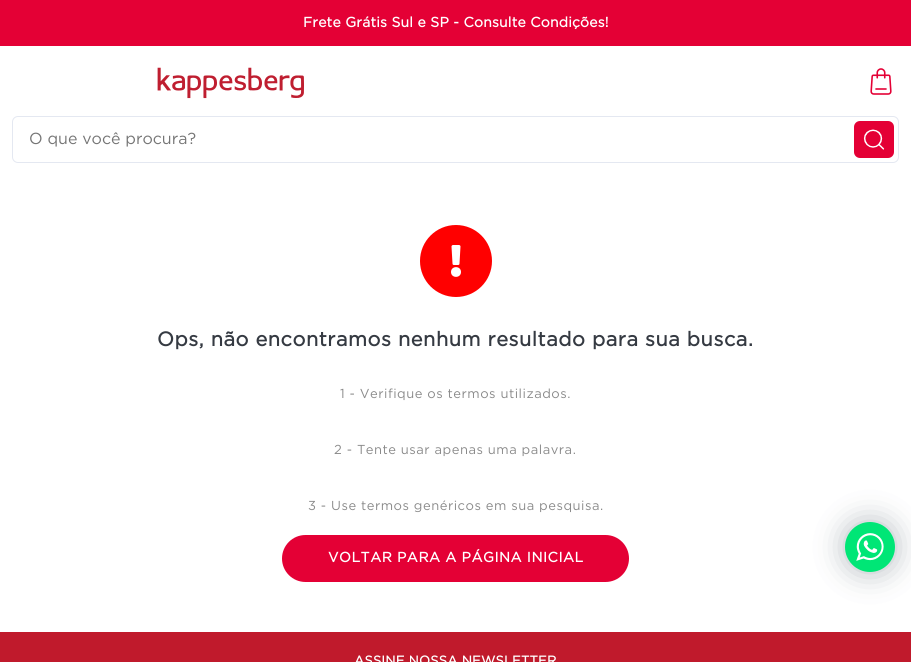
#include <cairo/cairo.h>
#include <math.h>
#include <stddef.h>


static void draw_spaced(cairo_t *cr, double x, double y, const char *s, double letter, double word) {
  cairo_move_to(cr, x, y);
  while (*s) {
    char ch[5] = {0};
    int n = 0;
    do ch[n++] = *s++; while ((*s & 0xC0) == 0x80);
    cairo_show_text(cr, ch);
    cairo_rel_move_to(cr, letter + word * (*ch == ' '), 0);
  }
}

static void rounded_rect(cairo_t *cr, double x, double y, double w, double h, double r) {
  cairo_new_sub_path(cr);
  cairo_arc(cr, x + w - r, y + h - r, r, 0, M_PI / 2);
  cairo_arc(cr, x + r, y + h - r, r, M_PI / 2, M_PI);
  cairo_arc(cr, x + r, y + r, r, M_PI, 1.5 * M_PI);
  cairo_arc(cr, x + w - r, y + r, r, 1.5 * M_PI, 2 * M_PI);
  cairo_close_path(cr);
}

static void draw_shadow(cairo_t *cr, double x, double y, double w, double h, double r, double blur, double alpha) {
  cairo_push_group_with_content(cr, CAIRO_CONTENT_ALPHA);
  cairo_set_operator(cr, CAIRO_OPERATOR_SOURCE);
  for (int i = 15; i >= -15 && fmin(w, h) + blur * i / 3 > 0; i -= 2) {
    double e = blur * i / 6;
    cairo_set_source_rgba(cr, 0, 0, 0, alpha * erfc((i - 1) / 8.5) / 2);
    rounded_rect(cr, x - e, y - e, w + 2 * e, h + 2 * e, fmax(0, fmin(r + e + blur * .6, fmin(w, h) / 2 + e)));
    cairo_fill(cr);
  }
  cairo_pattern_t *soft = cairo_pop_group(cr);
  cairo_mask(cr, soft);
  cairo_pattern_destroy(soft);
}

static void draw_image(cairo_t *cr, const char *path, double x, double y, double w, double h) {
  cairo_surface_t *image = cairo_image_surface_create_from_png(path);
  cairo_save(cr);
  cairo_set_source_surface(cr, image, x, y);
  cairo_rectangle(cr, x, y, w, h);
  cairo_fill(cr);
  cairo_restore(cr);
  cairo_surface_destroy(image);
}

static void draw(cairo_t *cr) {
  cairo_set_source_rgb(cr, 1, 1, 1);
  cairo_paint(cr);
  cairo_set_source_rgb(cr, 228 / 255.0, 0, 53 / 255.0);
  cairo_rectangle(cr, 0, 0, 911, 46);
  cairo_fill(cr);
  draw_image(cr, "images/1.png", 157, 67, 147, 32);
  draw_image(cr, "images/2.png", 870, 68, 22, 27);
  rounded_rect(cr, 12.5, 116.5, 886, 46, 5.5);
  cairo_set_source_rgb(cr, 228 / 255.0, 232 / 255.0, 241 / 255.0);
  cairo_set_line_width(cr, 1);
  cairo_stroke(cr);
  cairo_set_source_rgb(cr, 228 / 255.0, 0, 53 / 255.0);
  rounded_rect(cr, 854, 121, 40, 37, 6);
  cairo_fill(cr);
  draw_image(cr, "images/3.png", 863, 129, 22, 21);
  cairo_set_source_rgb(cr, 1, 0, 0);
  cairo_arc(cr, 456, 261, 36, 0, 2 * M_PI);
  cairo_fill(cr);
  cairo_set_source_rgb(cr, 1, 1, 1);
  cairo_new_path(cr);
  cairo_move_to(cr, 461, 272);
  cairo_curve_to(cr, 461, 265.5, 451, 265.5, 451, 272);
  cairo_curve_to(cr, 451, 278.5, 461, 278.5, 461, 272);
  cairo_close_path(cr);
  cairo_move_to(cr, 451.5, 246.5);
  cairo_line_to(cr, 452.5, 263.5);
  cairo_curve_to(cr, 452.5, 264.5, 453, 265, 454, 265);
  cairo_line_to(cr, 458, 265);
  cairo_curve_to(cr, 459, 265, 459.5, 264.5, 459.5, 263.5);
  cairo_line_to(cr, 460.5, 246.5);
  cairo_curve_to(cr, 460.5, 246, 460, 245, 459, 245);
  cairo_line_to(cr, 453, 245);
  cairo_curve_to(cr, 452, 245, 451.5, 246, 451.5, 246.5);
  cairo_close_path(cr);
  cairo_fill(cr);
  cairo_set_source_rgb(cr, 228 / 255.0, 0, 53 / 255.0);
  rounded_rect(cr, 282, 535, 347, 47, 23.5);
  cairo_fill(cr);
  cairo_set_source_rgb(cr, 150 / 255.0, 158 / 255.0, 166 / 255.0);
  draw_shadow(cr, 845, 522, 50, 50, 25, 15, 0.7);
  cairo_set_source_rgb(cr, 0, 230 / 255.0, 118 / 255.0);
  cairo_arc(cr, 870, 547, 25, 0, 2 * M_PI);
  cairo_fill(cr);
  draw_image(cr, "images/4.png", 856, 533, 28, 28);
  cairo_set_source_rgb(cr, 192 / 255.0, 26 / 255.0, 44 / 255.0);
  cairo_rectangle(cr, 0, 632, 911, 30);
  cairo_fill(cr);
  cairo_select_font_face(cr, "Gotham", CAIRO_FONT_SLANT_NORMAL, CAIRO_FONT_WEIGHT_BOLD);
  cairo_set_font_size(cr, 14);
  cairo_set_source_rgb(cr, 1, 1, 1);
  draw_spaced(cr, 303, 27, "Frete Grátis Sul e SP - Consulte Condições!", 0.15, 0);
  cairo_select_font_face(cr, "Gotham", CAIRO_FONT_SLANT_NORMAL, CAIRO_FONT_WEIGHT_NORMAL);
  cairo_set_font_size(cr, 16);
  cairo_set_source_rgb(cr, 117 / 255.0, 117 / 255.0, 117 / 255.0);
  cairo_move_to(cr, 29, 144);
  cairo_show_text(cr, "O que você procura?");
  cairo_select_font_face(cr, "Gotham", CAIRO_FONT_SLANT_NORMAL, CAIRO_FONT_WEIGHT_BOLD);
  cairo_set_font_size(cr, 20);
  cairo_set_source_rgb(cr, 53 / 255.0, 58 / 255.0, 66 / 255.0);
  draw_spaced(cr, 157, 346, "Ops, não encontramos nenhum resultado para sua busca.", 0.5, 0);
  cairo_select_font_face(cr, "Gotham", CAIRO_FONT_SLANT_NORMAL, CAIRO_FONT_WEIGHT_NORMAL);
  cairo_set_font_size(cr, 13);
  cairo_set_source_rgb(cr, 138 / 255.0, 138 / 255.0, 138 / 255.0);
  draw_spaced(cr, 340, 398, "1 - Verifique os termos utilizados.", 0.5, 0);
  draw_spaced(cr, 334, 454, "2 - Tente usar apenas uma palavra.", 0.5, 0);
  draw_spaced(cr, 308, 510, "3 - Use termos genéricos em sua pesquisa.", 0.5, 0);
  cairo_select_font_face(cr, "Gotham", CAIRO_FONT_SLANT_NORMAL, CAIRO_FONT_WEIGHT_BOLD);
  cairo_set_font_size(cr, 14);
  cairo_set_source_rgb(cr, 1, 1, 1);
  draw_spaced(cr, 328, 562, "VOLTAR PARA A PÁGINA INICIAL", 0.5, 0);
  cairo_set_font_size(cr, 13);
  draw_spaced(cr, 354, 665, "ASSINE NOSSA NEWSLETTER", 0.15, 0);
}

int main(void) {
  cairo_surface_t *surface = cairo_image_surface_create(CAIRO_FORMAT_RGB24, 911, 662);
  cairo_t *cr = cairo_create(surface);
  cairo_font_options_t *options = cairo_font_options_create();
  cairo_font_options_set_hint_metrics(options, CAIRO_HINT_METRICS_OFF);
  cairo_font_options_set_hint_style(options, CAIRO_HINT_STYLE_NONE);
  cairo_set_font_options(cr, options);
  cairo_set_miter_limit(cr, 4);
  draw(cr);
  cairo_surface_write_to_png(surface, "out.png");
  cairo_font_options_destroy(options);
  cairo_destroy(cr);
  cairo_surface_destroy(surface);
  return 0;
}
